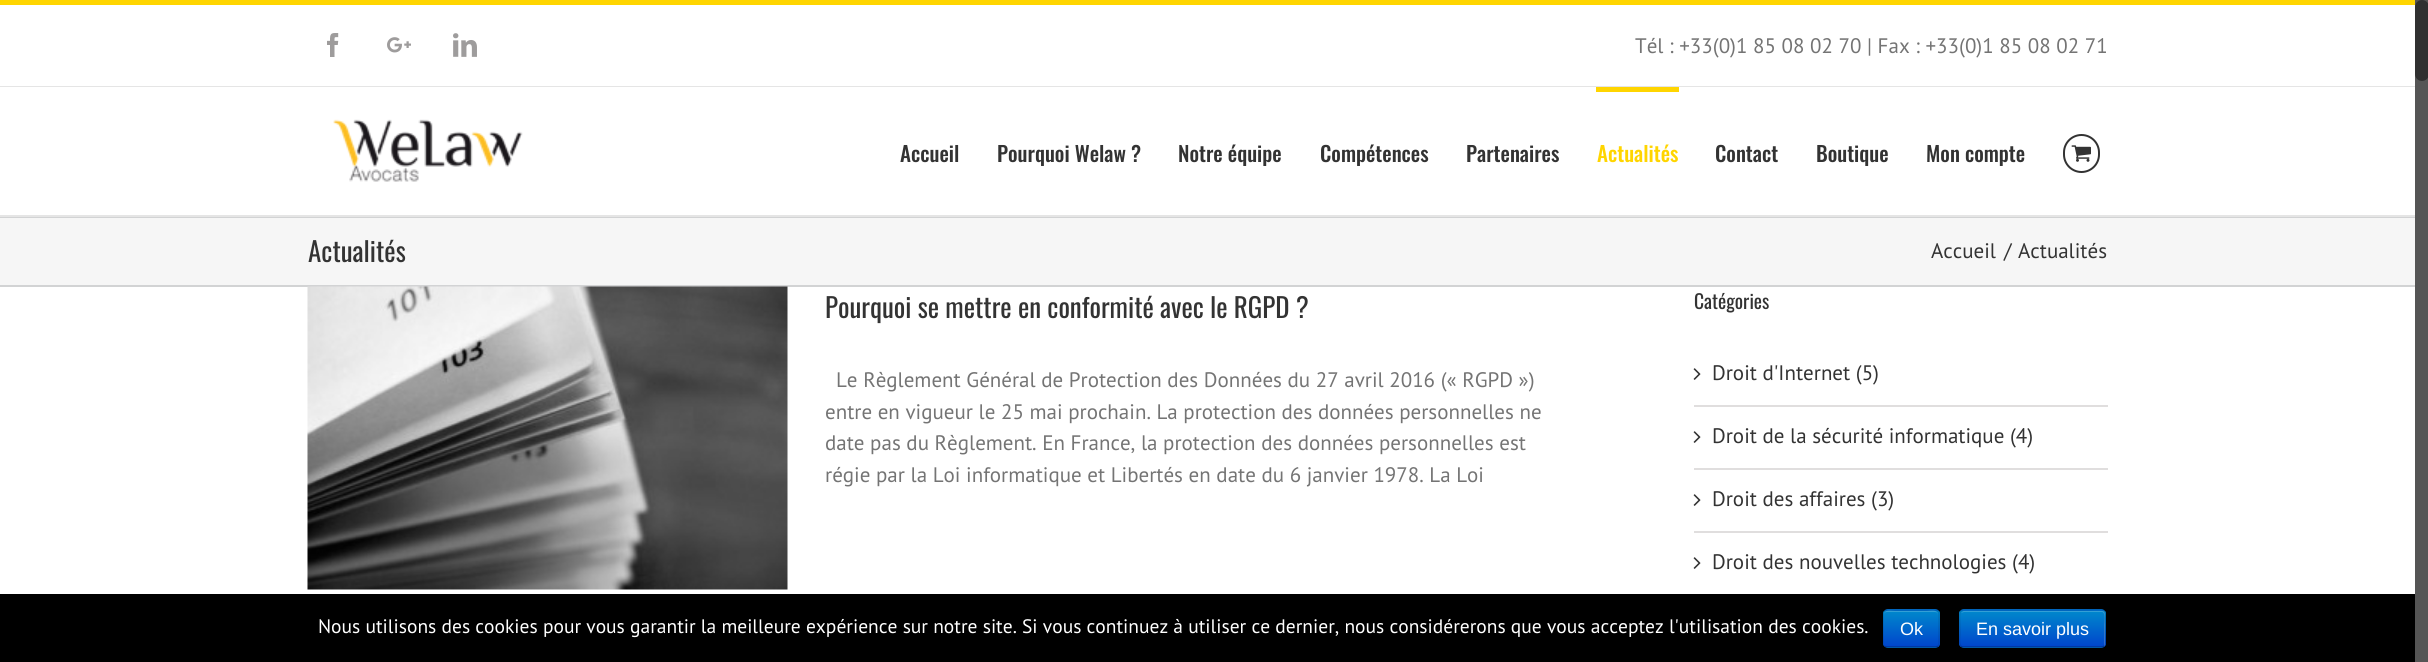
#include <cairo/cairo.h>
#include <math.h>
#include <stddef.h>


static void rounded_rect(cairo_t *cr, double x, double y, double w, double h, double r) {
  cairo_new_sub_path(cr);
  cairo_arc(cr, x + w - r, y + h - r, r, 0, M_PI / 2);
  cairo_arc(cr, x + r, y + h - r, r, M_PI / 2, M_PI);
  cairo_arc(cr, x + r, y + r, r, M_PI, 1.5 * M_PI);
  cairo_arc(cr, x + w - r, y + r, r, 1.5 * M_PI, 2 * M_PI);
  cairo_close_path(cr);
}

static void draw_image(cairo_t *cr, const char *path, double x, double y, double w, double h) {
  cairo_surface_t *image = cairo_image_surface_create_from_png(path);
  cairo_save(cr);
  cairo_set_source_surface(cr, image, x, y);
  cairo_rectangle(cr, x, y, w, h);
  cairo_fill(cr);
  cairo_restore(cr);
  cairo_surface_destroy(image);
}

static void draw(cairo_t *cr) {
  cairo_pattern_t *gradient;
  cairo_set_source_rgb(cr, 1, 1, 1);
  cairo_paint(cr);
  cairo_set_source_rgb(cr, 1, 213 / 255.0, 0);
  cairo_rectangle(cr, 0, 0, 2415, 5);
  cairo_fill(cr);
  cairo_set_source_rgb(cr, 229 / 255.0, 229 / 255.0, 229 / 255.0);
  cairo_rectangle(cr, 0, 86, 2415, 1);
  cairo_fill(cr);
  draw_image(cr, "images/1.png", 327, 33, 12, 24);
  draw_image(cr, "images/2.png", 387, 37, 24, 16);
  draw_image(cr, "images/3.png", 453, 33, 24, 24);
  cairo_rectangle(cr, 0, 215, 2415, 2);
  cairo_fill(cr);
  draw_image(cr, "images/4.png", 333, 119, 190, 63);
  cairo_set_source_rgb(cr, 1, 213 / 255.0, 0);
  cairo_rectangle(cr, 1596, 87, 83, 5);
  cairo_fill(cr);
  rounded_rect(cr, 2064, 135, 35, 37, 17.5);
  cairo_set_source_rgb(cr, 51 / 255.0, 51 / 255.0, 51 / 255.0);
  cairo_stroke(cr);
  draw_image(cr, "images/5.png", 2071, 145, 20, 17);
  cairo_set_source_rgb(cr, 246 / 255.0, 246 / 255.0, 246 / 255.0);
  cairo_rectangle(cr, 0, 218, 2415, 67);
  cairo_fill(cr);
  cairo_set_source_rgb(cr, 210 / 255.0, 211 / 255.0, 212 / 255.0);
  cairo_rectangle(cr, 0, 217, 2415, 1);
  cairo_fill(cr);
  cairo_rectangle(cr, 0, 285, 2415, 2);
  cairo_fill(cr);
  draw_image(cr, "images/6.png", 307, 286, 481, 304);
  cairo_set_source_rgb(cr, 224 / 255.0, 222 / 255.0, 222 / 255.0);
  cairo_rectangle(cr, 1694, 405, 414, 2);
  cairo_fill(cr);
  draw_image(cr, "images/7.png", 1693, 368, 8, 12);
  cairo_rectangle(cr, 1694, 468, 414, 2);
  cairo_fill(cr);
  draw_image(cr, "images/7.png", 1693, 431, 8, 12);
  cairo_rectangle(cr, 1694, 531, 414, 2);
  cairo_fill(cr);
  draw_image(cr, "images/7.png", 1693, 494, 8, 12);
  draw_image(cr, "images/7.png", 1693, 557, 8, 12);
  cairo_set_source_rgb(cr, 85 / 255.0, 85 / 255.0, 85 / 255.0);
  cairo_rectangle(cr, 2415, 0, 13, 662);
  cairo_fill(cr);
  cairo_set_source_rgb(cr, 48 / 255.0, 48 / 255.0, 48 / 255.0);
  rounded_rect(cr, 2415, 0, 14, 81, 7);
  cairo_fill(cr);
  cairo_set_source_rgb(cr, 0, 0, 0);
  cairo_rectangle(cr, 0, 594, 2415, 68);
  cairo_fill(cr);
  cairo_set_source_rgb(cr, 0, 109 / 255.0, 204 / 255.0);
  rounded_rect(cr, 1883, 609, 57, 39, 5);
  cairo_fill(cr);
  cairo_save(cr);
  rounded_rect(cr, 1883, 609, 57, 39, 5);
  cairo_clip(cr);
  gradient = cairo_pattern_create_linear(1911, 611, 1911, 647);
  cairo_pattern_add_color_stop_rgba(gradient, 0, 0, 136 / 255.0, 204 / 255.0, 1);
  cairo_pattern_add_color_stop_rgba(gradient, 1, 0, 68 / 255.0, 204 / 255.0, 1);
  cairo_set_source(cr, gradient);
  cairo_pattern_destroy(gradient);
  cairo_rectangle(cr, 1883, 611, 57, 36);
  cairo_fill(cr);
  cairo_restore(cr);
  cairo_set_source_rgb(cr, 51 / 255.0, 159 / 255.0, 214 / 255.0);
  cairo_new_path(cr);
  cairo_move_to(cr, 1887, 612);
  cairo_line_to(cr, 1935, 612);
  cairo_curve_to(cr, 1937, 612, 1938, 613, 1938, 615);
  cairo_curve_to(cr, 1938, 609, 1931, 611, 1927, 611);
  cairo_line_to(cr, 1895, 611);
  cairo_curve_to(cr, 1891, 611, 1884, 609, 1884, 615);
  cairo_curve_to(cr, 1884, 613, 1885, 612, 1887, 612);
  cairo_close_path(cr);
  cairo_fill(cr);
  cairo_new_path(cr);
  cairo_move_to(cr, 1937.5, 646);
  cairo_curve_to(cr, 1937, 647, 1936, 647, 1935, 647);
  cairo_line_to(cr, 1887, 647);
  cairo_curve_to(cr, 1886, 647, 1885, 647, 1884.5, 646);
  cairo_set_source_rgba(cr, 0, 0, 0, 0.25);
  cairo_set_line_width(cr, 1.5);
  cairo_stroke(cr);
  cairo_new_path(cr);
  cairo_move_to(cr, 1884.5, 646);
  cairo_curve_to(cr, 1883.5, 645.5, 1883, 644.5, 1883, 643.5);
  cairo_line_to(cr, 1883, 613.5);
  cairo_curve_to(cr, 1883, 612.5, 1883.5, 611.5, 1884.5, 611);
  cairo_curve_to(cr, 1885, 610, 1886, 610, 1887, 610);
  cairo_line_to(cr, 1935, 610);
  cairo_curve_to(cr, 1936, 610, 1937, 610, 1937.5, 611);
  cairo_curve_to(cr, 1938.5, 611.5, 1939, 612.5, 1939, 613.5);
  cairo_line_to(cr, 1939, 643.5);
  cairo_curve_to(cr, 1939, 644.5, 1938.5, 645.5, 1937.5, 646);
  cairo_set_source_rgba(cr, 0, 0, 0, 0.1);
  cairo_stroke(cr);
  cairo_set_source_rgb(cr, 0, 109 / 255.0, 204 / 255.0);
  rounded_rect(cr, 1959, 609, 147, 39, 5);
  cairo_fill(cr);
  cairo_save(cr);
  rounded_rect(cr, 1959, 609, 147, 39, 5);
  cairo_clip(cr);
  gradient = cairo_pattern_create_linear(2033, 611, 2033, 647);
  cairo_pattern_add_color_stop_rgba(gradient, 0, 0, 136 / 255.0, 204 / 255.0, 1);
  cairo_pattern_add_color_stop_rgba(gradient, 1, 0, 68 / 255.0, 204 / 255.0, 1);
  cairo_set_source(cr, gradient);
  cairo_pattern_destroy(gradient);
  cairo_rectangle(cr, 1959, 611, 147, 36);
  cairo_fill(cr);
  cairo_restore(cr);
  cairo_set_source_rgba(cr, 1, 1, 1, 0.2);
  cairo_new_path(cr);
  cairo_move_to(cr, 1964, 612);
  cairo_line_to(cr, 2102, 612);
  cairo_curve_to(cr, 2106, 612, 2104, 624, 2104, 625);
  cairo_line_to(cr, 2104, 646);
  cairo_curve_to(cr, 2105, 646, 2105, 645, 2105, 644);
  cairo_line_to(cr, 2105, 614);
  cairo_curve_to(cr, 2105, 612, 2104, 611, 2102, 611);
  cairo_line_to(cr, 1964, 611);
  cairo_curve_to(cr, 1963, 611, 1962, 612, 1961, 613);
  cairo_close_path(cr);
  cairo_fill(cr);
  cairo_new_path(cr);
  cairo_move_to(cr, 2104, 646);
  cairo_curve_to(cr, 2103.5, 647, 2102.5, 647, 2101.5, 647);
  cairo_line_to(cr, 1963.5, 647);
  cairo_curve_to(cr, 1962.5, 647, 1961.5, 647, 1961, 646);
  cairo_set_source_rgba(cr, 0, 0, 0, 0.25);
  cairo_stroke(cr);
  cairo_new_path(cr);
  cairo_move_to(cr, 1961, 646);
  cairo_curve_to(cr, 1958.5, 643.5, 1960, 636, 1960, 633.5);
  cairo_curve_to(cr, 1960, 604, 1954.5, 610, 1986.5, 610);
  cairo_line_to(cr, 2078.5, 610);
  cairo_curve_to(cr, 2110.5, 610, 2105, 604, 2105, 633.5);
  cairo_curve_to(cr, 2105, 636, 2106.5, 643.5, 2104, 646);
  cairo_set_source_rgba(cr, 0, 0, 0, 0.1);
  cairo_stroke(cr);
  cairo_select_font_face(cr, "PT Sans", CAIRO_FONT_SLANT_NORMAL, CAIRO_FONT_WEIGHT_NORMAL);
  cairo_set_font_size(cr, 21);
  cairo_set_source_rgb(cr, 116 / 255.0, 116 / 255.0, 116 / 255.0);
  cairo_move_to(cr, 1635, 53);
  cairo_show_text(cr, "Tél : +33(0)1 85 08 02 70 | Fax : +33(0)1 85 08 02 71");
  cairo_select_font_face(cr, "Oswald Medium", CAIRO_FONT_SLANT_NORMAL, CAIRO_FONT_WEIGHT_NORMAL);
  cairo_set_source_rgb(cr, 51 / 255.0, 51 / 255.0, 51 / 255.0);
  cairo_move_to(cr, 900, 162);
  cairo_show_text(cr, "Accueil");
  cairo_move_to(cr, 997, 162);
  cairo_show_text(cr, "Pourquoi Welaw ?");
  cairo_move_to(cr, 1178, 162);
  cairo_show_text(cr, "Notre équipe");
  cairo_move_to(cr, 1320, 162);
  cairo_show_text(cr, "Compétences");
  cairo_move_to(cr, 1466, 162);
  cairo_show_text(cr, "Partenaires");
  cairo_set_source_rgb(cr, 1, 213 / 255.0, 0);
  cairo_move_to(cr, 1597, 162);
  cairo_show_text(cr, "Actualités");
  cairo_set_source_rgb(cr, 51 / 255.0, 51 / 255.0, 51 / 255.0);
  cairo_move_to(cr, 1715, 162);
  cairo_show_text(cr, "Contact");
  cairo_move_to(cr, 1816, 162);
  cairo_show_text(cr, "Boutique");
  cairo_move_to(cr, 1926, 162);
  cairo_show_text(cr, "Mon compte");
  cairo_select_font_face(cr, "Oswald", CAIRO_FONT_SLANT_NORMAL, CAIRO_FONT_WEIGHT_NORMAL);
  cairo_set_font_size(cr, 27);
  cairo_move_to(cr, 308, 262);
  cairo_show_text(cr, "Actualités");
  cairo_select_font_face(cr, "PT Sans", CAIRO_FONT_SLANT_NORMAL, CAIRO_FONT_WEIGHT_NORMAL);
  cairo_set_font_size(cr, 21);
  cairo_move_to(cr, 1931, 258);
  cairo_show_text(cr, "Accueil");
  cairo_move_to(cr, 2004, 258);
  cairo_show_text(cr, "/");
  cairo_move_to(cr, 2018, 258);
  cairo_show_text(cr, "Actualités");
  cairo_select_font_face(cr, "Oswald", CAIRO_FONT_SLANT_NORMAL, CAIRO_FONT_WEIGHT_NORMAL);
  cairo_set_font_size(cr, 27);
  cairo_move_to(cr, 825, 318);
  cairo_show_text(cr, "Pourquoi se mettre en conformité avec le RGPD ?");
  cairo_select_font_face(cr, "PT Sans", CAIRO_FONT_SLANT_NORMAL, CAIRO_FONT_WEIGHT_NORMAL);
  cairo_set_font_size(cr, 21);
  cairo_set_source_rgb(cr, 116 / 255.0, 116 / 255.0, 116 / 255.0);
  cairo_move_to(cr, 836, 387);
  cairo_show_text(cr, "Le Règlement Général de Protection des Données du 27 avril 2016 (« RGPD »)");
  cairo_move_to(cr, 825, 419);
  cairo_show_text(cr, "entre en vigueur le 25 mai prochain. La protection des données personnelles ne");
  cairo_move_to(cr, 825, 450);
  cairo_show_text(cr, "date pas du Règlement. En France, la protection des données personnelles est");
  cairo_move_to(cr, 825, 482);
  cairo_show_text(cr, "régie par la Loi informatique et Libertés en date du 6 janvier 1978. La Loi");
  cairo_select_font_face(cr, "Oswald", CAIRO_FONT_SLANT_NORMAL, CAIRO_FONT_WEIGHT_NORMAL);
  cairo_set_font_size(cr, 19.5);
  cairo_set_source_rgb(cr, 51 / 255.0, 51 / 255.0, 51 / 255.0);
  cairo_move_to(cr, 1694, 309);
  cairo_show_text(cr, "Catégories");
  cairo_select_font_face(cr, "PT Sans", CAIRO_FONT_SLANT_NORMAL, CAIRO_FONT_WEIGHT_NORMAL);
  cairo_set_font_size(cr, 21);
  cairo_move_to(cr, 1712, 380);
  cairo_show_text(cr, "Droit d'Internet (5)");
  cairo_move_to(cr, 1712, 443);
  cairo_show_text(cr, "Droit de la sécurité informatique (4)");
  cairo_move_to(cr, 1712, 506);
  cairo_show_text(cr, "Droit des affaires (3)");
  cairo_move_to(cr, 1712, 569);
  cairo_show_text(cr, "Droit des nouvelles technologies (4)");
  cairo_set_font_size(cr, 19.5);
  cairo_set_source_rgb(cr, 1, 1, 1);
  cairo_move_to(cr, 318, 633);
  cairo_show_text(cr, "Nous utilisons des cookies pour vous garantir la meilleure expérience sur notre site. Si vous continuez à utiliser ce dernier, nous considérerons que vous acceptez l'utilisation des cookies.");
  cairo_select_font_face(cr, "Liberation Sans", CAIRO_FONT_SLANT_NORMAL, CAIRO_FONT_WEIGHT_NORMAL);
  cairo_set_font_size(cr, 18);
  cairo_move_to(cr, 1900, 635);
  cairo_show_text(cr, "Ok");
  cairo_move_to(cr, 1976, 635);
  cairo_show_text(cr, "En savoir plus");
}

int main(void) {
  cairo_surface_t *surface = cairo_image_surface_create(CAIRO_FORMAT_RGB24, 2428, 662);
  cairo_t *cr = cairo_create(surface);
  cairo_font_options_t *options = cairo_font_options_create();
  cairo_font_options_set_hint_metrics(options, CAIRO_HINT_METRICS_OFF);
  cairo_font_options_set_hint_style(options, CAIRO_HINT_STYLE_NONE);
  cairo_set_font_options(cr, options);
  cairo_set_miter_limit(cr, 4);
  draw(cr);
  cairo_surface_write_to_png(surface, "out.png");
  cairo_font_options_destroy(options);
  cairo_destroy(cr);
  cairo_surface_destroy(surface);
  return 0;
}
